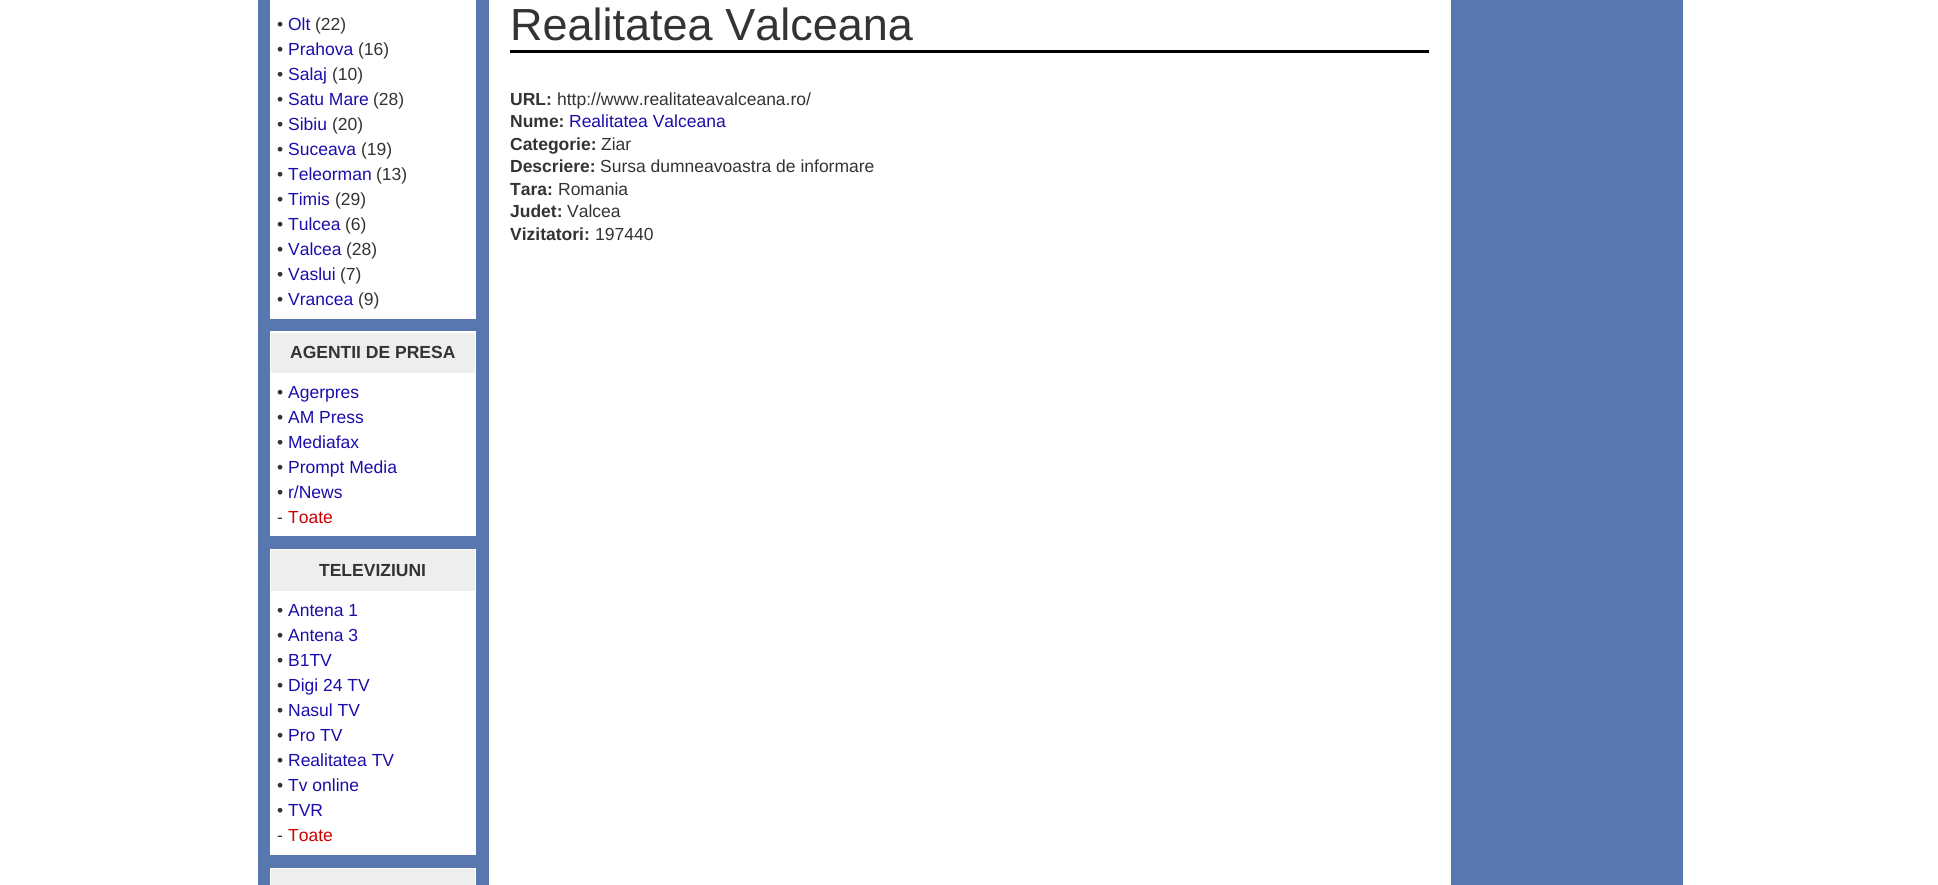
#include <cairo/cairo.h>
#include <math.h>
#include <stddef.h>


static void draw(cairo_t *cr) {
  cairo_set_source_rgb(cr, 1, 1, 1);
  cairo_paint(cr);
  cairo_set_source_rgb(cr, 89 / 255.0, 119 / 255.0, 175 / 255.0);
  cairo_rectangle(cr, 258, 0, 231, 885);
  cairo_fill(cr);
  cairo_set_source_rgb(cr, 1, 1, 1);
  cairo_rectangle(cr, 270, 0, 206, 319);
  cairo_fill(cr);
  cairo_rectangle(cr, 270, 331, 206, 205);
  cairo_fill(cr);
  cairo_set_source_rgb(cr, 238 / 255.0, 238 / 255.0, 238 / 255.0);
  cairo_rectangle(cr, 271, 333, 204, 40);
  cairo_fill(cr);
  cairo_set_source_rgb(cr, 1, 1, 1);
  cairo_rectangle(cr, 270, 549, 206, 306);
  cairo_fill(cr);
  cairo_set_source_rgb(cr, 238 / 255.0, 238 / 255.0, 238 / 255.0);
  cairo_rectangle(cr, 271, 550, 204, 41);
  cairo_fill(cr);
  cairo_set_source_rgb(cr, 1, 1, 1);
  cairo_rectangle(cr, 270, 868, 206, 17);
  cairo_fill(cr);
  cairo_set_source_rgb(cr, 238 / 255.0, 238 / 255.0, 238 / 255.0);
  cairo_rectangle(cr, 271, 869, 204, 16);
  cairo_fill(cr);
  cairo_set_source_rgb(cr, 0, 0, 0);
  cairo_rectangle(cr, 510, 50, 919, 3);
  cairo_fill(cr);
  cairo_set_source_rgb(cr, 89 / 255.0, 119 / 255.0, 175 / 255.0);
  cairo_rectangle(cr, 1451, 0, 232, 885);
  cairo_fill(cr);
  cairo_select_font_face(cr, "Liberation Sans", CAIRO_FONT_SLANT_NORMAL, CAIRO_FONT_WEIGHT_NORMAL);
  cairo_set_font_size(cr, 17.5);
  cairo_set_source_rgb(cr, 51 / 255.0, 51 / 255.0, 51 / 255.0);
  cairo_move_to(cr, 277, 30);
  cairo_show_text(cr, "•");
  cairo_set_source_rgb(cr, 26 / 255.0, 13 / 255.0, 171 / 255.0);
  cairo_move_to(cr, 288, 30);
  cairo_show_text(cr, "Olt");
  cairo_set_source_rgb(cr, 51 / 255.0, 51 / 255.0, 51 / 255.0);
  cairo_move_to(cr, 315, 30);
  cairo_show_text(cr, "(22)");
  cairo_move_to(cr, 277, 55);
  cairo_show_text(cr, "•");
  cairo_set_source_rgb(cr, 26 / 255.0, 13 / 255.0, 171 / 255.0);
  cairo_move_to(cr, 288, 55);
  cairo_show_text(cr, "Prahova");
  cairo_set_source_rgb(cr, 51 / 255.0, 51 / 255.0, 51 / 255.0);
  cairo_move_to(cr, 358, 55);
  cairo_show_text(cr, "(16)");
  cairo_move_to(cr, 277, 80);
  cairo_show_text(cr, "•");
  cairo_set_source_rgb(cr, 26 / 255.0, 13 / 255.0, 171 / 255.0);
  cairo_move_to(cr, 288, 80);
  cairo_show_text(cr, "Salaj");
  cairo_set_source_rgb(cr, 51 / 255.0, 51 / 255.0, 51 / 255.0);
  cairo_move_to(cr, 332, 80);
  cairo_show_text(cr, "(10)");
  cairo_move_to(cr, 277, 105);
  cairo_show_text(cr, "•");
  cairo_set_source_rgb(cr, 26 / 255.0, 13 / 255.0, 171 / 255.0);
  cairo_move_to(cr, 288, 105);
  cairo_show_text(cr, "Satu Mare");
  cairo_set_source_rgb(cr, 51 / 255.0, 51 / 255.0, 51 / 255.0);
  cairo_move_to(cr, 373, 105);
  cairo_show_text(cr, "(28)");
  cairo_move_to(cr, 277, 130);
  cairo_show_text(cr, "•");
  cairo_set_source_rgb(cr, 26 / 255.0, 13 / 255.0, 171 / 255.0);
  cairo_move_to(cr, 288, 130);
  cairo_show_text(cr, "Sibiu");
  cairo_set_source_rgb(cr, 51 / 255.0, 51 / 255.0, 51 / 255.0);
  cairo_move_to(cr, 332, 130);
  cairo_show_text(cr, "(20)");
  cairo_move_to(cr, 277, 155);
  cairo_show_text(cr, "•");
  cairo_set_source_rgb(cr, 26 / 255.0, 13 / 255.0, 171 / 255.0);
  cairo_move_to(cr, 288, 155);
  cairo_show_text(cr, "Suceava");
  cairo_set_source_rgb(cr, 51 / 255.0, 51 / 255.0, 51 / 255.0);
  cairo_move_to(cr, 361, 155);
  cairo_show_text(cr, "(19)");
  cairo_move_to(cr, 277, 180);
  cairo_show_text(cr, "•");
  cairo_set_source_rgb(cr, 26 / 255.0, 13 / 255.0, 171 / 255.0);
  cairo_move_to(cr, 288, 180);
  cairo_show_text(cr, "Teleorman");
  cairo_set_source_rgb(cr, 51 / 255.0, 51 / 255.0, 51 / 255.0);
  cairo_move_to(cr, 376, 180);
  cairo_show_text(cr, "(13)");
  cairo_move_to(cr, 277, 205);
  cairo_show_text(cr, "•");
  cairo_set_source_rgb(cr, 26 / 255.0, 13 / 255.0, 171 / 255.0);
  cairo_move_to(cr, 288, 205);
  cairo_show_text(cr, "Timis");
  cairo_set_source_rgb(cr, 51 / 255.0, 51 / 255.0, 51 / 255.0);
  cairo_move_to(cr, 335, 205);
  cairo_show_text(cr, "(29)");
  cairo_move_to(cr, 277, 230);
  cairo_show_text(cr, "•");
  cairo_set_source_rgb(cr, 26 / 255.0, 13 / 255.0, 171 / 255.0);
  cairo_move_to(cr, 288, 230);
  cairo_show_text(cr, "Tulcea");
  cairo_set_source_rgb(cr, 51 / 255.0, 51 / 255.0, 51 / 255.0);
  cairo_move_to(cr, 345, 230);
  cairo_show_text(cr, "(6)");
  cairo_move_to(cr, 277, 255);
  cairo_show_text(cr, "•");
  cairo_set_source_rgb(cr, 26 / 255.0, 13 / 255.0, 171 / 255.0);
  cairo_move_to(cr, 288, 255);
  cairo_show_text(cr, "Valcea");
  cairo_set_source_rgb(cr, 51 / 255.0, 51 / 255.0, 51 / 255.0);
  cairo_move_to(cr, 346, 255);
  cairo_show_text(cr, "(28)");
  cairo_move_to(cr, 277, 280);
  cairo_show_text(cr, "•");
  cairo_set_source_rgb(cr, 26 / 255.0, 13 / 255.0, 171 / 255.0);
  cairo_move_to(cr, 288, 280);
  cairo_show_text(cr, "Vaslui");
  cairo_set_source_rgb(cr, 51 / 255.0, 51 / 255.0, 51 / 255.0);
  cairo_move_to(cr, 340, 280);
  cairo_show_text(cr, "(7)");
  cairo_move_to(cr, 277, 305);
  cairo_show_text(cr, "•");
  cairo_set_source_rgb(cr, 26 / 255.0, 13 / 255.0, 171 / 255.0);
  cairo_move_to(cr, 288, 305);
  cairo_show_text(cr, "Vrancea");
  cairo_set_source_rgb(cr, 51 / 255.0, 51 / 255.0, 51 / 255.0);
  cairo_move_to(cr, 358, 305);
  cairo_show_text(cr, "(9)");
  cairo_select_font_face(cr, "Liberation Sans", CAIRO_FONT_SLANT_NORMAL, CAIRO_FONT_WEIGHT_BOLD);
  cairo_move_to(cr, 290, 358);
  cairo_show_text(cr, "AGENTII DE PRESA");
  cairo_select_font_face(cr, "Liberation Sans", CAIRO_FONT_SLANT_NORMAL, CAIRO_FONT_WEIGHT_NORMAL);
  cairo_move_to(cr, 277, 398);
  cairo_show_text(cr, "•");
  cairo_set_source_rgb(cr, 26 / 255.0, 13 / 255.0, 171 / 255.0);
  cairo_move_to(cr, 288, 398);
  cairo_show_text(cr, "Agerpres");
  cairo_set_source_rgb(cr, 51 / 255.0, 51 / 255.0, 51 / 255.0);
  cairo_move_to(cr, 277, 423);
  cairo_show_text(cr, "•");
  cairo_set_source_rgb(cr, 26 / 255.0, 13 / 255.0, 171 / 255.0);
  cairo_move_to(cr, 288, 423);
  cairo_show_text(cr, "AM Press");
  cairo_set_source_rgb(cr, 51 / 255.0, 51 / 255.0, 51 / 255.0);
  cairo_move_to(cr, 277, 448);
  cairo_show_text(cr, "•");
  cairo_set_source_rgb(cr, 26 / 255.0, 13 / 255.0, 171 / 255.0);
  cairo_move_to(cr, 288, 448);
  cairo_show_text(cr, "Mediafax");
  cairo_set_source_rgb(cr, 51 / 255.0, 51 / 255.0, 51 / 255.0);
  cairo_move_to(cr, 277, 473);
  cairo_show_text(cr, "•");
  cairo_set_source_rgb(cr, 26 / 255.0, 13 / 255.0, 171 / 255.0);
  cairo_move_to(cr, 288, 473);
  cairo_show_text(cr, "Prompt Media");
  cairo_set_source_rgb(cr, 51 / 255.0, 51 / 255.0, 51 / 255.0);
  cairo_move_to(cr, 277, 498);
  cairo_show_text(cr, "•");
  cairo_set_source_rgb(cr, 26 / 255.0, 13 / 255.0, 171 / 255.0);
  cairo_move_to(cr, 288, 498);
  cairo_show_text(cr, "r/News");
  cairo_set_source_rgb(cr, 51 / 255.0, 51 / 255.0, 51 / 255.0);
  cairo_move_to(cr, 277, 523);
  cairo_show_text(cr, "-");
  cairo_set_source_rgb(cr, 204 / 255.0, 0, 0);
  cairo_move_to(cr, 288, 523);
  cairo_show_text(cr, "Toate");
  cairo_select_font_face(cr, "Liberation Sans", CAIRO_FONT_SLANT_NORMAL, CAIRO_FONT_WEIGHT_BOLD);
  cairo_set_source_rgb(cr, 51 / 255.0, 51 / 255.0, 51 / 255.0);
  cairo_move_to(cr, 319, 576);
  cairo_show_text(cr, "TELEVIZIUNI");
  cairo_select_font_face(cr, "Liberation Sans", CAIRO_FONT_SLANT_NORMAL, CAIRO_FONT_WEIGHT_NORMAL);
  cairo_move_to(cr, 277, 616);
  cairo_show_text(cr, "•");
  cairo_set_source_rgb(cr, 26 / 255.0, 13 / 255.0, 171 / 255.0);
  cairo_move_to(cr, 288, 616);
  cairo_show_text(cr, "Antena 1");
  cairo_set_source_rgb(cr, 51 / 255.0, 51 / 255.0, 51 / 255.0);
  cairo_move_to(cr, 277, 641);
  cairo_show_text(cr, "•");
  cairo_set_source_rgb(cr, 26 / 255.0, 13 / 255.0, 171 / 255.0);
  cairo_move_to(cr, 288, 641);
  cairo_show_text(cr, "Antena 3");
  cairo_set_source_rgb(cr, 51 / 255.0, 51 / 255.0, 51 / 255.0);
  cairo_move_to(cr, 277, 666);
  cairo_show_text(cr, "•");
  cairo_set_source_rgb(cr, 26 / 255.0, 13 / 255.0, 171 / 255.0);
  cairo_move_to(cr, 288, 666);
  cairo_show_text(cr, "B1TV");
  cairo_set_source_rgb(cr, 51 / 255.0, 51 / 255.0, 51 / 255.0);
  cairo_move_to(cr, 277, 691);
  cairo_show_text(cr, "•");
  cairo_set_source_rgb(cr, 26 / 255.0, 13 / 255.0, 171 / 255.0);
  cairo_move_to(cr, 288, 691);
  cairo_show_text(cr, "Digi 24 TV");
  cairo_set_source_rgb(cr, 51 / 255.0, 51 / 255.0, 51 / 255.0);
  cairo_move_to(cr, 277, 716);
  cairo_show_text(cr, "•");
  cairo_set_source_rgb(cr, 26 / 255.0, 13 / 255.0, 171 / 255.0);
  cairo_move_to(cr, 288, 716);
  cairo_show_text(cr, "Nasul TV");
  cairo_set_source_rgb(cr, 51 / 255.0, 51 / 255.0, 51 / 255.0);
  cairo_move_to(cr, 277, 741);
  cairo_show_text(cr, "•");
  cairo_set_source_rgb(cr, 26 / 255.0, 13 / 255.0, 171 / 255.0);
  cairo_move_to(cr, 288, 741);
  cairo_show_text(cr, "Pro TV");
  cairo_set_source_rgb(cr, 51 / 255.0, 51 / 255.0, 51 / 255.0);
  cairo_move_to(cr, 277, 766);
  cairo_show_text(cr, "•");
  cairo_set_source_rgb(cr, 26 / 255.0, 13 / 255.0, 171 / 255.0);
  cairo_move_to(cr, 288, 766);
  cairo_show_text(cr, "Realitatea TV");
  cairo_set_source_rgb(cr, 51 / 255.0, 51 / 255.0, 51 / 255.0);
  cairo_move_to(cr, 277, 791);
  cairo_show_text(cr, "•");
  cairo_set_source_rgb(cr, 26 / 255.0, 13 / 255.0, 171 / 255.0);
  cairo_move_to(cr, 288, 791);
  cairo_show_text(cr, "Tv online");
  cairo_set_source_rgb(cr, 51 / 255.0, 51 / 255.0, 51 / 255.0);
  cairo_move_to(cr, 277, 816);
  cairo_show_text(cr, "•");
  cairo_set_source_rgb(cr, 26 / 255.0, 13 / 255.0, 171 / 255.0);
  cairo_move_to(cr, 288, 816);
  cairo_show_text(cr, "TVR");
  cairo_set_source_rgb(cr, 51 / 255.0, 51 / 255.0, 51 / 255.0);
  cairo_move_to(cr, 277, 841);
  cairo_show_text(cr, "-");
  cairo_set_source_rgb(cr, 204 / 255.0, 0, 0);
  cairo_move_to(cr, 288, 841);
  cairo_show_text(cr, "Toate");
  cairo_set_font_size(cr, 45);
  cairo_set_source_rgb(cr, 51 / 255.0, 51 / 255.0, 51 / 255.0);
  cairo_move_to(cr, 510, 40);
  cairo_show_text(cr, "Realitatea Valceana");
  cairo_select_font_face(cr, "Liberation Sans", CAIRO_FONT_SLANT_NORMAL, CAIRO_FONT_WEIGHT_BOLD);
  cairo_set_font_size(cr, 17.5);
  cairo_move_to(cr, 510, 105);
  cairo_show_text(cr, "URL:");
  cairo_select_font_face(cr, "Liberation Sans", CAIRO_FONT_SLANT_NORMAL, CAIRO_FONT_WEIGHT_NORMAL);
  cairo_move_to(cr, 557, 105);
  cairo_show_text(cr, "http://www.realitateavalceana.ro/");
  cairo_select_font_face(cr, "Liberation Sans", CAIRO_FONT_SLANT_NORMAL, CAIRO_FONT_WEIGHT_BOLD);
  cairo_move_to(cr, 510, 127);
  cairo_show_text(cr, "Nume:");
  cairo_select_font_face(cr, "Liberation Sans", CAIRO_FONT_SLANT_NORMAL, CAIRO_FONT_WEIGHT_NORMAL);
  cairo_set_source_rgb(cr, 26 / 255.0, 13 / 255.0, 171 / 255.0);
  cairo_move_to(cr, 569, 127);
  cairo_show_text(cr, "Realitatea Valceana");
  cairo_select_font_face(cr, "Liberation Sans", CAIRO_FONT_SLANT_NORMAL, CAIRO_FONT_WEIGHT_BOLD);
  cairo_set_source_rgb(cr, 51 / 255.0, 51 / 255.0, 51 / 255.0);
  cairo_move_to(cr, 510, 150);
  cairo_show_text(cr, "Categorie:");
  cairo_select_font_face(cr, "Liberation Sans", CAIRO_FONT_SLANT_NORMAL, CAIRO_FONT_WEIGHT_NORMAL);
  cairo_move_to(cr, 601, 150);
  cairo_show_text(cr, "Ziar");
  cairo_select_font_face(cr, "Liberation Sans", CAIRO_FONT_SLANT_NORMAL, CAIRO_FONT_WEIGHT_BOLD);
  cairo_move_to(cr, 510, 172);
  cairo_show_text(cr, "Descriere:");
  cairo_select_font_face(cr, "Liberation Sans", CAIRO_FONT_SLANT_NORMAL, CAIRO_FONT_WEIGHT_NORMAL);
  cairo_move_to(cr, 600, 172);
  cairo_show_text(cr, "Sursa dumneavoastra de informare");
  cairo_select_font_face(cr, "Liberation Sans", CAIRO_FONT_SLANT_NORMAL, CAIRO_FONT_WEIGHT_BOLD);
  cairo_move_to(cr, 510, 195);
  cairo_show_text(cr, "Tara:");
  cairo_select_font_face(cr, "Liberation Sans", CAIRO_FONT_SLANT_NORMAL, CAIRO_FONT_WEIGHT_NORMAL);
  cairo_move_to(cr, 558, 195);
  cairo_show_text(cr, "Romania");
  cairo_select_font_face(cr, "Liberation Sans", CAIRO_FONT_SLANT_NORMAL, CAIRO_FONT_WEIGHT_BOLD);
  cairo_move_to(cr, 510, 217);
  cairo_show_text(cr, "Judet:");
  cairo_select_font_face(cr, "Liberation Sans", CAIRO_FONT_SLANT_NORMAL, CAIRO_FONT_WEIGHT_NORMAL);
  cairo_move_to(cr, 567, 217);
  cairo_show_text(cr, "Valcea");
  cairo_select_font_face(cr, "Liberation Sans", CAIRO_FONT_SLANT_NORMAL, CAIRO_FONT_WEIGHT_BOLD);
  cairo_move_to(cr, 510, 240);
  cairo_show_text(cr, "Vizitatori:");
  cairo_select_font_face(cr, "Liberation Sans", CAIRO_FONT_SLANT_NORMAL, CAIRO_FONT_WEIGHT_NORMAL);
  cairo_move_to(cr, 595, 240);
  cairo_show_text(cr, "197440");
}

int main(void) {
  cairo_surface_t *surface = cairo_image_surface_create(CAIRO_FORMAT_RGB24, 1938, 885);
  cairo_t *cr = cairo_create(surface);
  cairo_font_options_t *options = cairo_font_options_create();
  cairo_font_options_set_hint_metrics(options, CAIRO_HINT_METRICS_OFF);
  cairo_font_options_set_hint_style(options, CAIRO_HINT_STYLE_NONE);
  cairo_set_font_options(cr, options);
  cairo_set_miter_limit(cr, 4);
  draw(cr);
  cairo_surface_write_to_png(surface, "out.png");
  cairo_font_options_destroy(options);
  cairo_destroy(cr);
  cairo_surface_destroy(surface);
  return 0;
}
